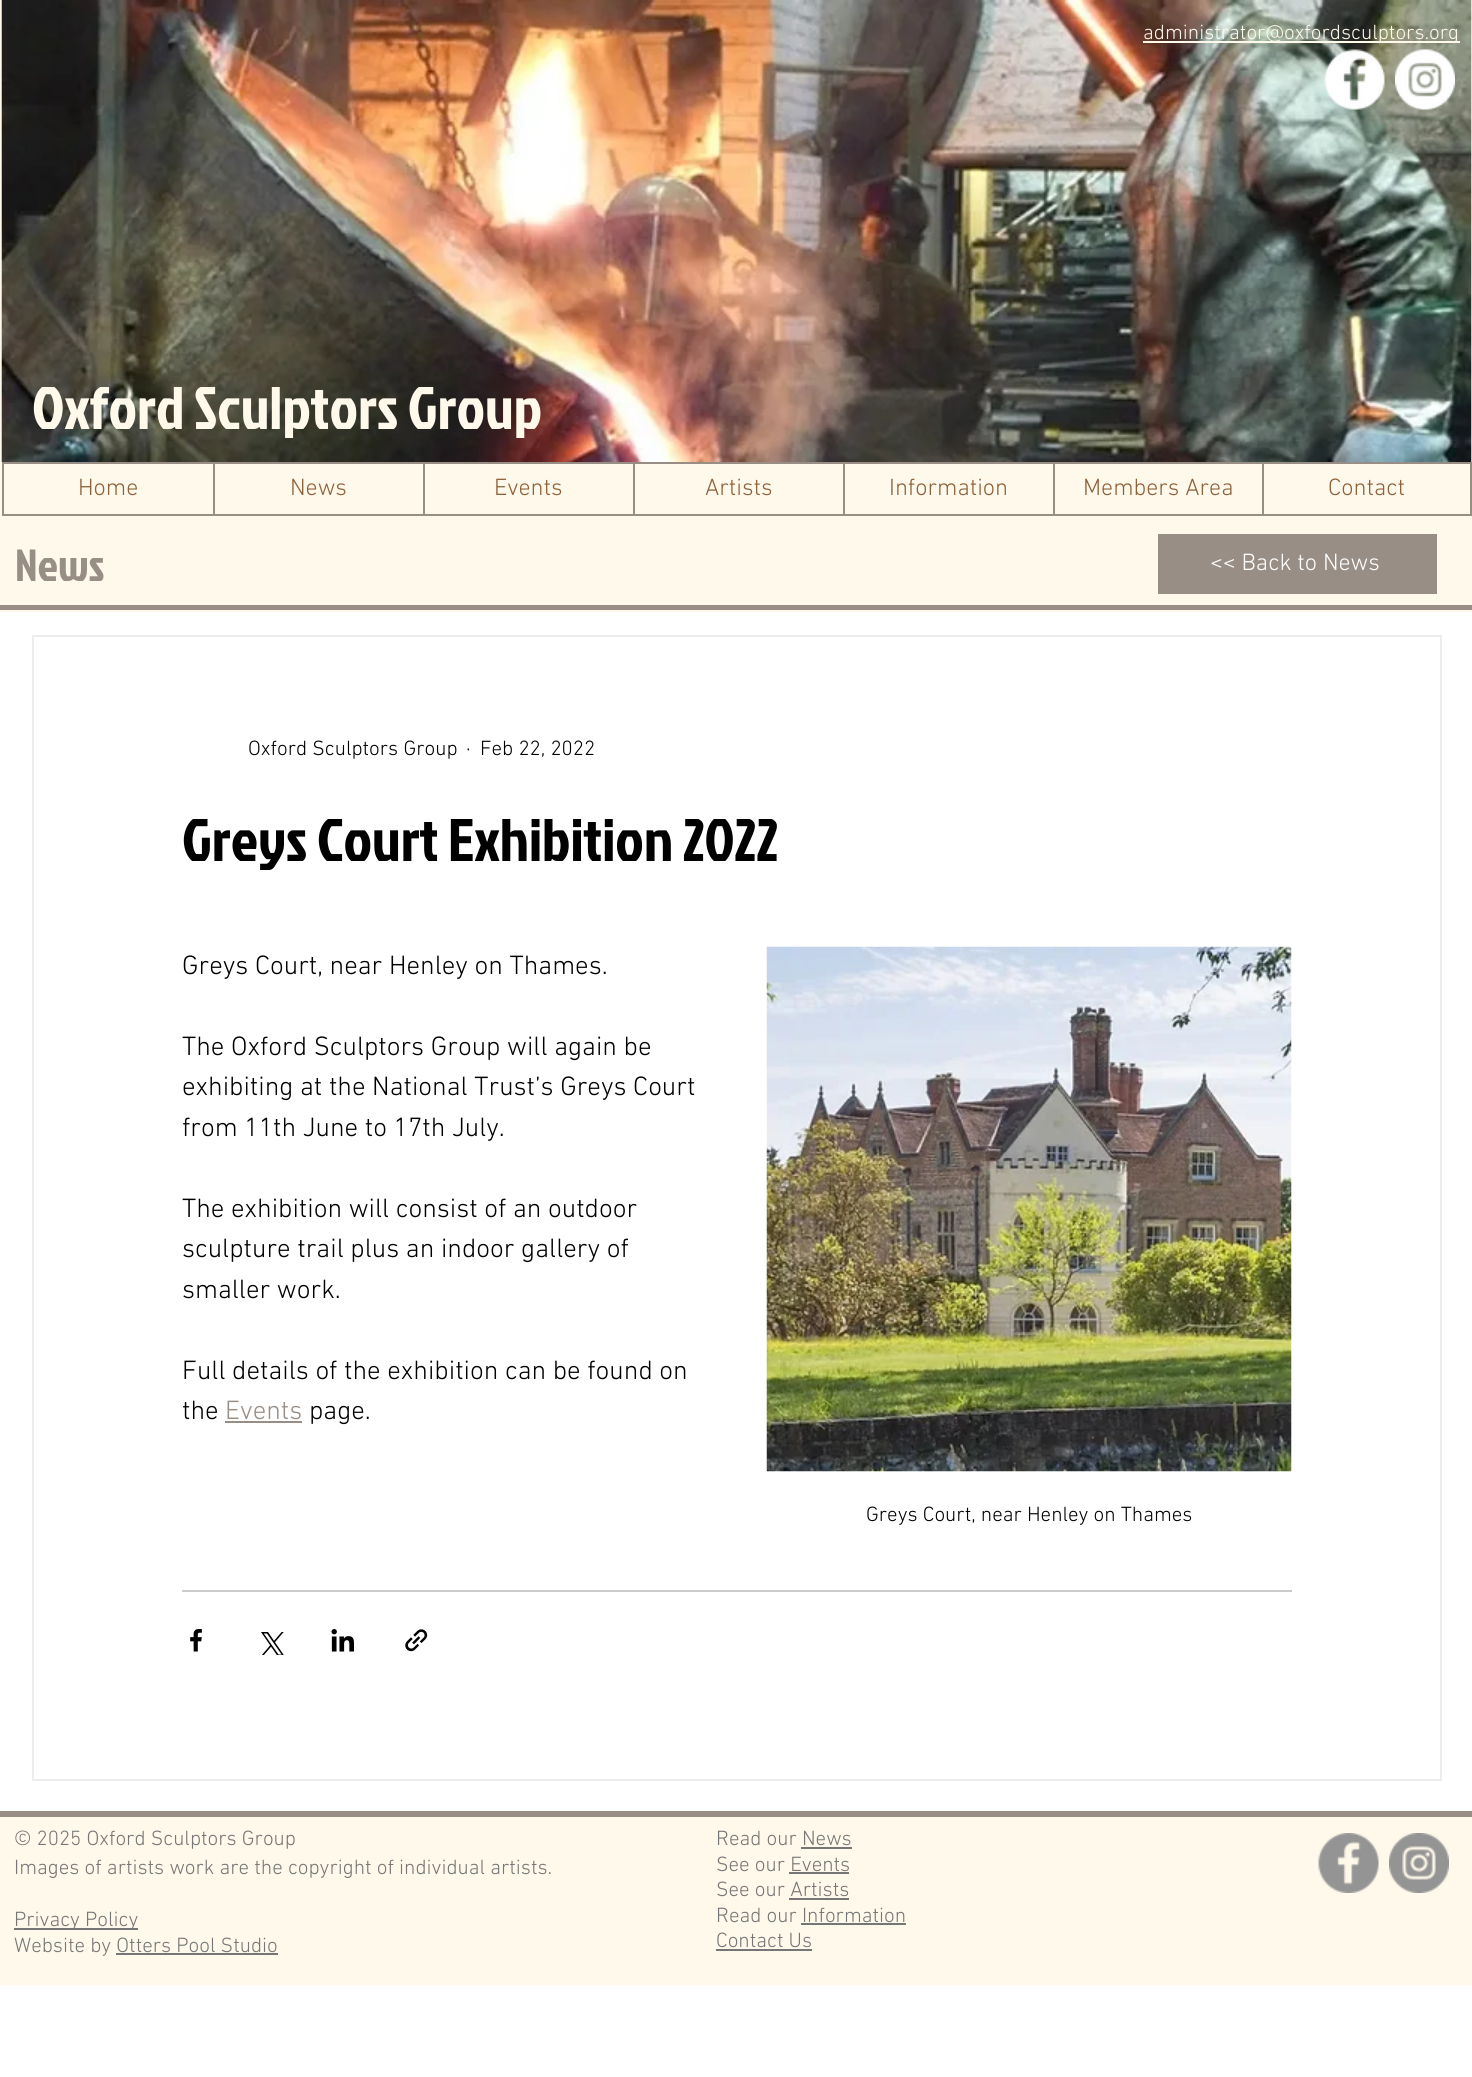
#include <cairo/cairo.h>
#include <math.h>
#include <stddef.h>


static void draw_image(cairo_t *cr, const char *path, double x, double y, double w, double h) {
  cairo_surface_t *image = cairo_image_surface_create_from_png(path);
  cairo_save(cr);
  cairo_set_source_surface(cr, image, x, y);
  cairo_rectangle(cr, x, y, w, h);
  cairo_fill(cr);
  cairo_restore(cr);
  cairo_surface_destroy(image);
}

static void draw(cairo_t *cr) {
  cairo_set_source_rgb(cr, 1, 1, 1);
  cairo_paint(cr);
  cairo_set_source_rgb(cr, 1, 249 / 255.0, 235 / 255.0);
  cairo_rectangle(cr, 0, 0, 1472, 612);
  cairo_fill(cr);
  cairo_set_source_rgb(cr, 250 / 255.0, 250 / 255.0, 250 / 255.0);
  cairo_rectangle(cr, 1471, 0, 1, 462);
  cairo_fill(cr);
  draw_image(cr, "images/1.png", 1, 0, 1471, 462);
  cairo_set_source_rgb(cr, 1, 249 / 255.0, 235 / 255.0);
  cairo_rectangle(cr, 1143, 41, 317, 2);
  cairo_fill(cr);
  draw_image(cr, "images/2.png", 1324, 49, 61, 61);
  draw_image(cr, "images/3.png", 1395, 49, 60, 61);
  cairo_rectangle(cr, 3, 463, 1468, 52);
  cairo_set_source_rgb(cr, 153 / 255.0, 142 / 255.0, 133 / 255.0);
  cairo_stroke(cr);
  cairo_rectangle(cr, 213, 464, 2, 51);
  cairo_fill(cr);
  cairo_rectangle(cr, 423, 464, 2, 51);
  cairo_fill(cr);
  cairo_rectangle(cr, 633, 464, 2, 51);
  cairo_fill(cr);
  cairo_rectangle(cr, 843, 464, 2, 51);
  cairo_fill(cr);
  cairo_rectangle(cr, 1053, 464, 2, 51);
  cairo_fill(cr);
  cairo_rectangle(cr, 1262, 464, 2, 51);
  cairo_fill(cr);
  cairo_rectangle(cr, 1158, 534, 279, 60);
  cairo_fill(cr);
  cairo_rectangle(cr, 0, 605, 1472, 5);
  cairo_fill(cr);
  cairo_rectangle(cr, 33, 636, 1408, 1144);
  cairo_set_source_rgb(cr, 238 / 255.0, 236 / 255.0, 236 / 255.0);
  cairo_stroke(cr);
  cairo_set_source_rgb(cr, 153 / 255.0, 142 / 255.0, 133 / 255.0);
  cairo_rectangle(cr, 225, 1421, 77, 2);
  cairo_fill(cr);
  draw_image(cr, "images/4.png", 766, 946, 526, 526);
  cairo_set_source_rgb(cr, 204 / 255.0, 204 / 255.0, 204 / 255.0);
  cairo_rectangle(cr, 182, 1590, 1110, 2);
  cairo_fill(cr);
  draw_image(cr, "images/5.png", 190, 1629, 12, 23);
  draw_image(cr, "images/6.png", 261, 1632, 23, 23);
  draw_image(cr, "images/7.png", 331, 1629, 23, 23);
  draw_image(cr, "images/8.png", 405, 1629, 23, 23);
  cairo_set_source_rgb(cr, 1, 249 / 255.0, 235 / 255.0);
  cairo_rectangle(cr, 0, 1817, 1472, 168);
  cairo_fill(cr);
  cairo_set_source_rgb(cr, 153 / 255.0, 142 / 255.0, 133 / 255.0);
  cairo_rectangle(cr, 0, 1811, 1472, 6);
  cairo_fill(cr);
  cairo_set_source_rgb(cr, 118 / 255.0, 118 / 255.0, 118 / 255.0);
  cairo_rectangle(cr, 801, 1847, 51, 2);
  cairo_fill(cr);
  cairo_rectangle(cr, 789, 1872, 60, 2);
  cairo_fill(cr);
  cairo_rectangle(cr, 789, 1898, 60, 2);
  cairo_fill(cr);
  cairo_rectangle(cr, 801, 1923, 105, 2);
  cairo_fill(cr);
  cairo_rectangle(cr, 716, 1949, 96, 2);
  cairo_fill(cr);
  draw_image(cr, "images/9.png", 1318, 1833, 61, 60);
  draw_image(cr, "images/10.png", 1389, 1833, 60, 60);
  cairo_rectangle(cr, 14, 1928, 124, 2);
  cairo_fill(cr);
  cairo_rectangle(cr, 116, 1953, 162, 2);
  cairo_fill(cr);
  cairo_select_font_face(cr, "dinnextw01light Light", CAIRO_FONT_SLANT_NORMAL, CAIRO_FONT_WEIGHT_NORMAL);
  cairo_set_font_size(cr, 21);
  cairo_set_source_rgb(cr, 1, 249 / 255.0, 235 / 255.0);
  cairo_move_to(cr, 1143, 39);
  cairo_show_text(cr, "administrator@oxfordsculptors.org");
  cairo_select_font_face(cr, "Jockey One", CAIRO_FONT_SLANT_NORMAL, CAIRO_FONT_WEIGHT_NORMAL);
  cairo_set_font_size(cr, 60);
  cairo_move_to(cr, 32, 429);
  cairo_show_text(cr, "Oxford Sculptors Group");
  cairo_select_font_face(cr, "dinnextw01light Light", CAIRO_FONT_SLANT_NORMAL, CAIRO_FONT_WEIGHT_NORMAL);
  cairo_set_font_size(cr, 24);
  cairo_set_source_rgb(cr, 143 / 255.0, 97 / 255.0, 57 / 255.0);
  cairo_move_to(cr, 78, 495);
  cairo_show_text(cr, "Home");
  cairo_move_to(cr, 290, 495);
  cairo_show_text(cr, "News");
  cairo_move_to(cr, 494, 495);
  cairo_show_text(cr, "Events");
  cairo_move_to(cr, 705, 495);
  cairo_show_text(cr, "Artists");
  cairo_move_to(cr, 889, 495);
  cairo_show_text(cr, "Information");
  cairo_move_to(cr, 1083, 495);
  cairo_show_text(cr, "Members Area");
  cairo_move_to(cr, 1328, 495);
  cairo_show_text(cr, "Contact");
  cairo_select_font_face(cr, "Jockey One", CAIRO_FONT_SLANT_NORMAL, CAIRO_FONT_WEIGHT_NORMAL);
  cairo_set_font_size(cr, 45);
  cairo_set_source_rgb(cr, 153 / 255.0, 142 / 255.0, 133 / 255.0);
  cairo_move_to(cr, 15, 581);
  cairo_show_text(cr, "News");
  cairo_select_font_face(cr, "dinnextw01light Light", CAIRO_FONT_SLANT_NORMAL, CAIRO_FONT_WEIGHT_NORMAL);
  cairo_set_font_size(cr, 24);
  cairo_set_source_rgb(cr, 1, 1, 1);
  cairo_move_to(cr, 1210, 570);
  cairo_show_text(cr, "<< Back to News");
  cairo_set_font_size(cr, 21);
  cairo_set_source_rgb(cr, 0, 0, 0);
  cairo_move_to(cr, 248, 755);
  cairo_show_text(cr, "Oxford Sculptors Group");
  cairo_move_to(cr, 466, 755);
  cairo_show_text(cr, "·");
  cairo_move_to(cr, 480, 755);
  cairo_show_text(cr, "Feb 22, 2022");
  cairo_select_font_face(cr, "Jockey One", CAIRO_FONT_SLANT_NORMAL, CAIRO_FONT_WEIGHT_NORMAL);
  cairo_set_font_size(cr, 60);
  cairo_move_to(cr, 182, 861);
  cairo_show_text(cr, "Greys Court Exhibition 2022");
  cairo_select_font_face(cr, "dinnextw01light Light", CAIRO_FONT_SLANT_NORMAL, CAIRO_FONT_WEIGHT_NORMAL);
  cairo_set_font_size(cr, 27);
  cairo_move_to(cr, 182, 974);
  cairo_show_text(cr, "Greys Court, near Henley on Thames.");
  cairo_move_to(cr, 182, 1055);
  cairo_show_text(cr, "The Oxford Sculptors Group will again be");
  cairo_move_to(cr, 182, 1095);
  cairo_show_text(cr, "exhibiting at the National Trust’s Greys Court");
  cairo_move_to(cr, 182, 1136);
  cairo_show_text(cr, "from 11th June to 17th July.");
  cairo_move_to(cr, 182, 1217);
  cairo_show_text(cr, "The exhibition will consist of an outdoor");
  cairo_move_to(cr, 182, 1257);
  cairo_show_text(cr, "sculpture trail plus an indoor gallery of");
  cairo_move_to(cr, 182, 1298);
  cairo_show_text(cr, "smaller work.");
  cairo_move_to(cr, 182, 1379);
  cairo_show_text(cr, "Full details of the exhibition can be found on");
  cairo_move_to(cr, 182, 1419);
  cairo_show_text(cr, "the");
  cairo_set_source_rgb(cr, 153 / 255.0, 142 / 255.0, 133 / 255.0);
  cairo_move_to(cr, 225, 1419);
  cairo_show_text(cr, "Events");
  cairo_set_source_rgb(cr, 0, 0, 0);
  cairo_move_to(cr, 309, 1419);
  cairo_show_text(cr, "page.");
  cairo_set_font_size(cr, 21);
  cairo_move_to(cr, 866, 1521);
  cairo_show_text(cr, "Greys Court, near Henley on Thames");
  cairo_set_source_rgb(cr, 118 / 255.0, 118 / 255.0, 118 / 255.0);
  cairo_move_to(cr, 14, 1845);
  cairo_show_text(cr, "© 2025 Oxford Sculptors Group");
  cairo_move_to(cr, 716, 1845);
  cairo_show_text(cr, "Read our News");
  cairo_move_to(cr, 716, 1871);
  cairo_show_text(cr, "See our Events");
  cairo_move_to(cr, 716, 1896);
  cairo_show_text(cr, "See our Artists");
  cairo_move_to(cr, 716, 1922);
  cairo_show_text(cr, "Read our Information");
  cairo_move_to(cr, 716, 1947);
  cairo_show_text(cr, "Contact Us");
  cairo_move_to(cr, 14, 1874);
  cairo_show_text(cr, "Images of artists work are the copyright of individual artists.");
  cairo_move_to(cr, 14, 1926);
  cairo_show_text(cr, "Privacy Policy");
  cairo_move_to(cr, 14, 1952);
  cairo_show_text(cr, "Website by Otters Pool Studio");
}

int main(void) {
  cairo_surface_t *surface = cairo_image_surface_create(CAIRO_FORMAT_RGB24, 1472, 2077);
  cairo_t *cr = cairo_create(surface);
  cairo_font_options_t *options = cairo_font_options_create();
  cairo_font_options_set_hint_metrics(options, CAIRO_HINT_METRICS_OFF);
  cairo_font_options_set_hint_style(options, CAIRO_HINT_STYLE_NONE);
  cairo_set_font_options(cr, options);
  cairo_set_miter_limit(cr, 4);
  draw(cr);
  cairo_surface_write_to_png(surface, "out.png");
  cairo_font_options_destroy(options);
  cairo_destroy(cr);
  cairo_surface_destroy(surface);
  return 0;
}
